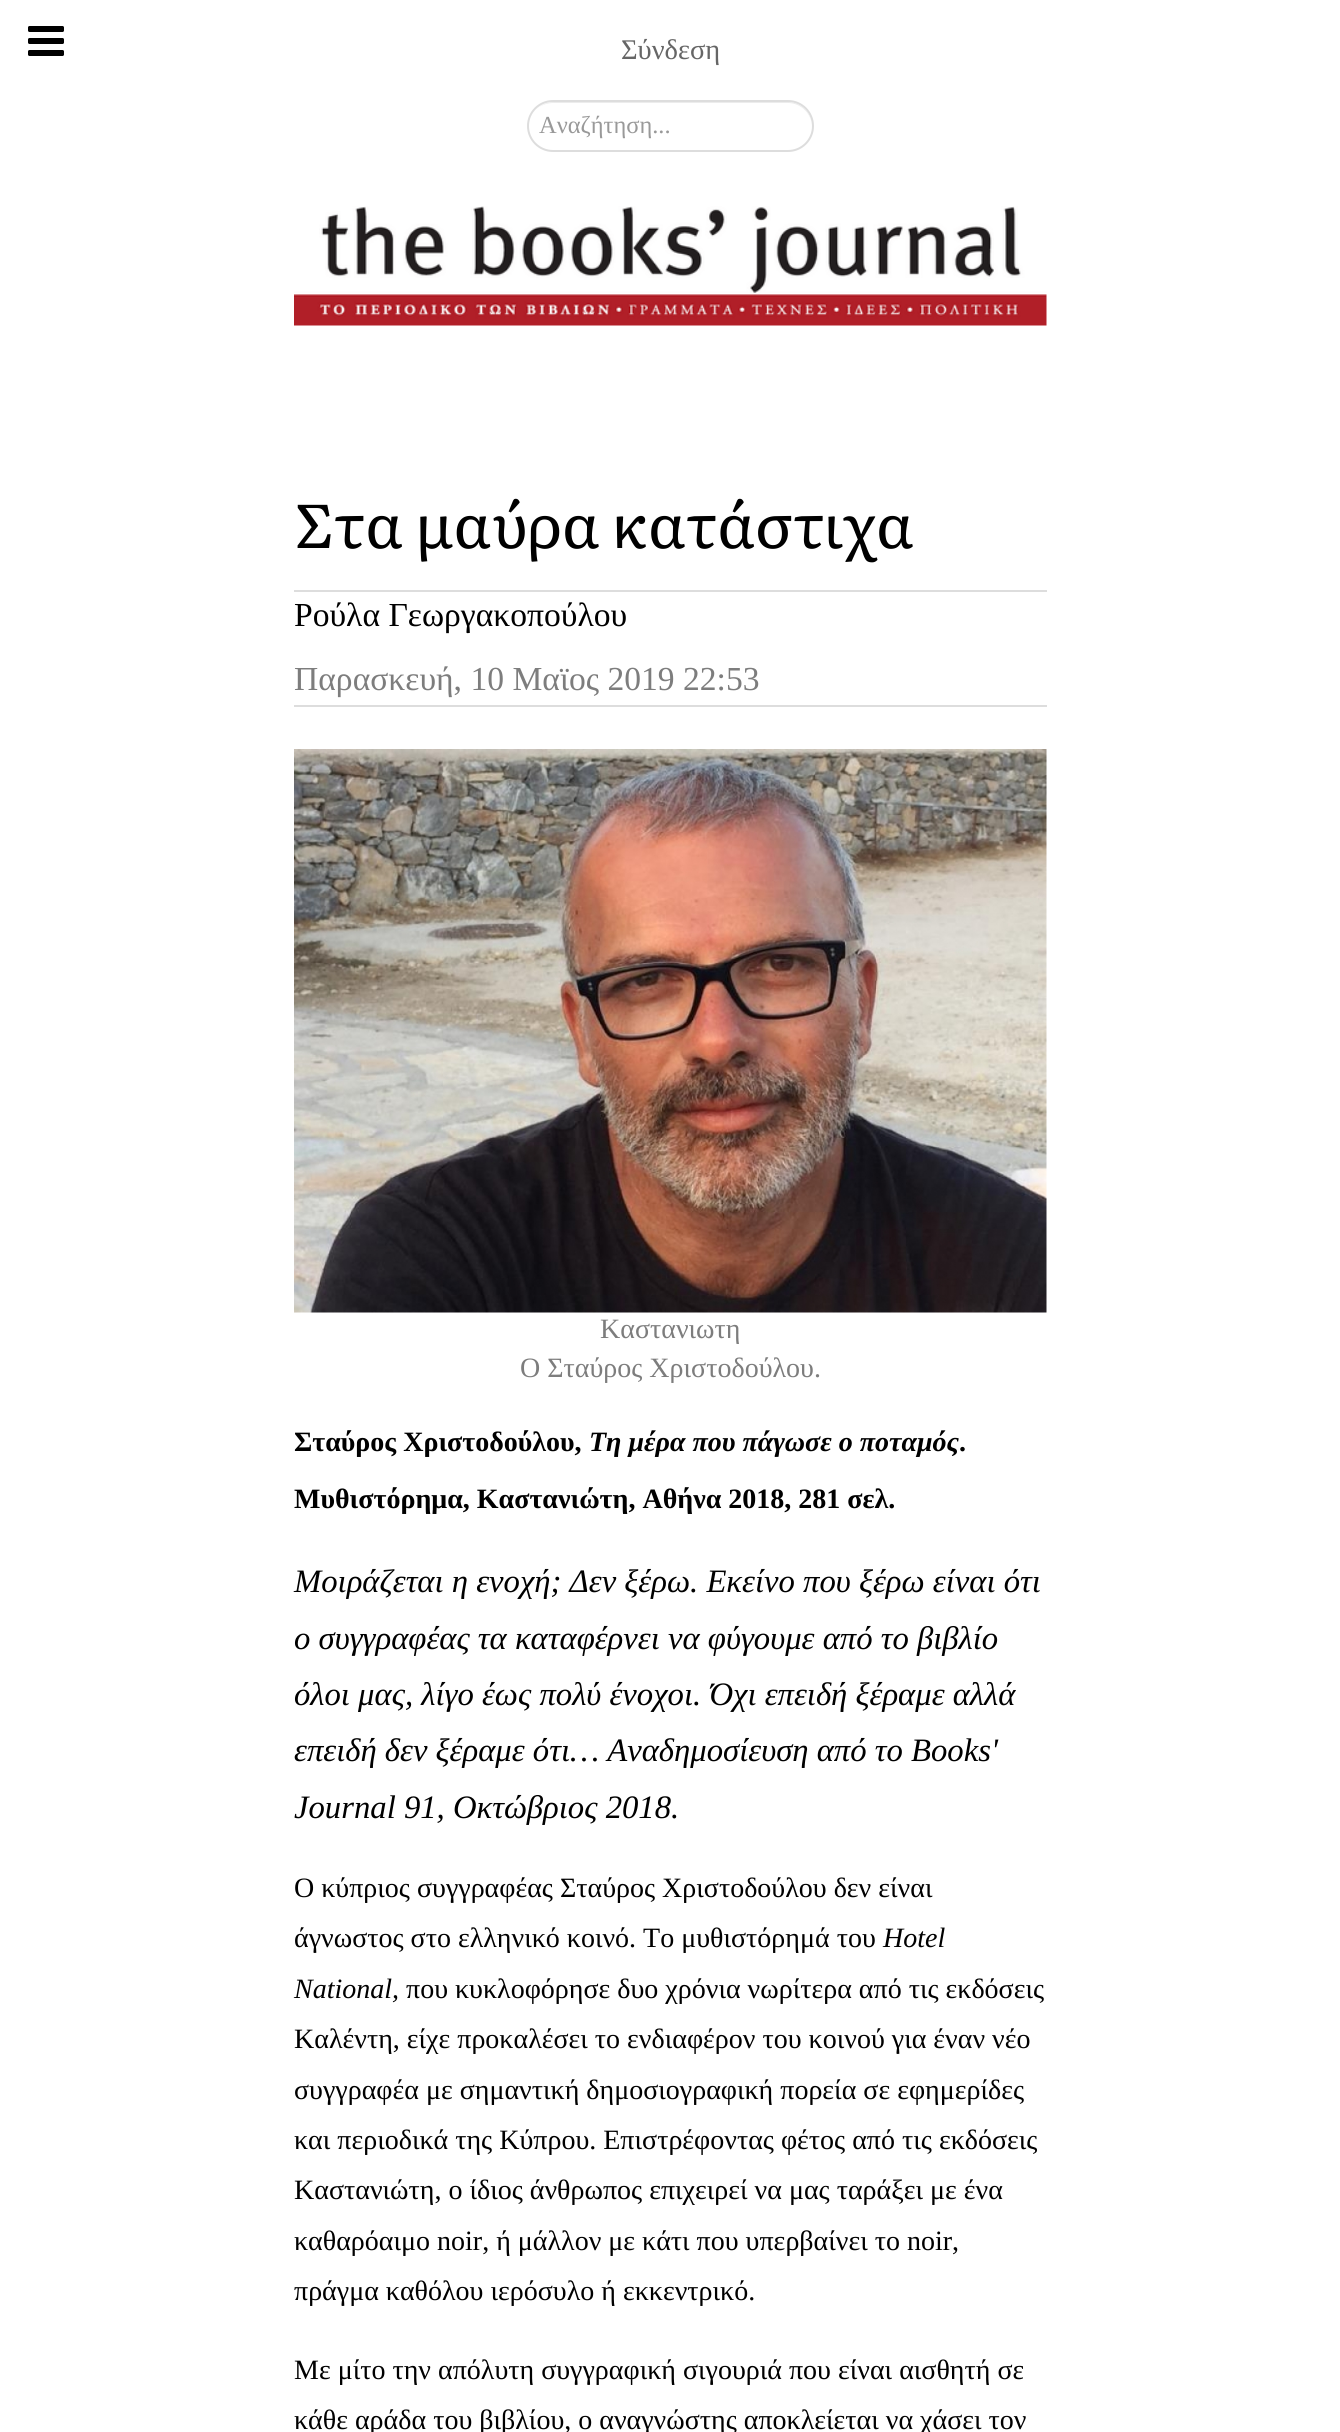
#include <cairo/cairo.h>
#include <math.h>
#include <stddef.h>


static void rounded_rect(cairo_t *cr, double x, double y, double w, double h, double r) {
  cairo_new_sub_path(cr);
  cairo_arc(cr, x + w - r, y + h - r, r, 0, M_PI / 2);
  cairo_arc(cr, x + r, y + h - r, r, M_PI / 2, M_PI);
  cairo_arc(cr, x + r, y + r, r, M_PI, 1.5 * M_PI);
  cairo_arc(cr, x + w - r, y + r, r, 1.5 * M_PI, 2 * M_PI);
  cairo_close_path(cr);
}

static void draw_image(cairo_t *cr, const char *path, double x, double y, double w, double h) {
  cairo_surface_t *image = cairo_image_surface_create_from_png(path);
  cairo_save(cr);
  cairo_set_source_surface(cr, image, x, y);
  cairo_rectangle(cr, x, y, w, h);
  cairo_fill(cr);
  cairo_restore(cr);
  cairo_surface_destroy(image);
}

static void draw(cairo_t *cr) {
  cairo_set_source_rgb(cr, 1, 1, 1);
  cairo_paint(cr);
  draw_image(cr, "images/1.png", 28, 26, 36, 30);
  cairo_set_source_rgb(cr, 236 / 255.0, 236 / 255.0, 236 / 255.0);
  cairo_new_path(cr);
  cairo_move_to(cr, 553, 103);
  cairo_line_to(cr, 788, 103);
  cairo_curve_to(cr, 801, 103, 812, 114, 812, 127);
  cairo_line_to(cr, 812, 126);
  cairo_curve_to(cr, 812, 113, 801, 102, 788, 102);
  cairo_line_to(cr, 554, 102);
  cairo_curve_to(cr, 546, 102, 539, 106, 534, 111);
  cairo_curve_to(cr, 539, 106, 546, 103, 553, 103);
  cairo_close_path(cr);
  cairo_fill(cr);
  rounded_rect(cr, 528, 101, 285, 50, 25);
  cairo_set_source_rgb(cr, 221 / 255.0, 221 / 255.0, 221 / 255.0);
  cairo_stroke(cr);
  draw_image(cr, "images/2.png", 294, 206, 753, 120);
  cairo_rectangle(cr, 294, 590, 753, 2);
  cairo_fill(cr);
  cairo_rectangle(cr, 294, 705, 753, 2);
  cairo_fill(cr);
  draw_image(cr, "images/3.png", 294, 749, 753, 564);
  cairo_select_font_face(cr, "Tinos", CAIRO_FONT_SLANT_NORMAL, CAIRO_FONT_WEIGHT_NORMAL);
  cairo_set_font_size(cr, 28.5);
  cairo_set_source_rgb(cr, 102 / 255.0, 102 / 255.0, 102 / 255.0);
  cairo_move_to(cr, 621, 59);
  cairo_show_text(cr, "Σύνδεση");
  cairo_set_font_size(cr, 24.5);
  cairo_set_source_rgb(cr, 153 / 255.0, 153 / 255.0, 153 / 255.0);
  cairo_move_to(cr, 539, 133);
  cairo_show_text(cr, "Αναζήτηση...");
  cairo_select_font_face(cr, "Literata", CAIRO_FONT_SLANT_NORMAL, CAIRO_FONT_WEIGHT_NORMAL);
  cairo_set_font_size(cr, 61.6);
  cairo_set_source_rgb(cr, 0, 0, 0);
  cairo_move_to(cr, 294, 548);
  cairo_show_text(cr, "Στα μαύρα κατάστιχα");
  cairo_select_font_face(cr, "Tinos", CAIRO_FONT_SLANT_NORMAL, CAIRO_FONT_WEIGHT_NORMAL);
  cairo_set_font_size(cr, 33.6);
  cairo_move_to(cr, 294, 626);
  cairo_show_text(cr, "Ρούλα Γεωργακοπούλου");
  cairo_set_source_rgb(cr, 125 / 255.0, 125 / 255.0, 125 / 255.0);
  cairo_move_to(cr, 294, 690);
  cairo_show_text(cr, "Παρασκευή, 10 Μαϊος 2019 22:53");
  cairo_set_font_size(cr, 28);
  cairo_move_to(cr, 600, 1338);
  cairo_show_text(cr, "Καστανιωτη");
  cairo_move_to(cr, 520, 1377);
  cairo_show_text(cr, "Ο Σταύρος Χριστοδούλου.");
  cairo_select_font_face(cr, "Liberation Serif", CAIRO_FONT_SLANT_NORMAL, CAIRO_FONT_WEIGHT_BOLD);
  cairo_set_source_rgb(cr, 0, 0, 0);
  cairo_move_to(cr, 294, 1451);
  cairo_show_text(cr, "Σταύρος Χριστοδούλου,");
  cairo_select_font_face(cr, "Liberation Serif", CAIRO_FONT_SLANT_ITALIC, CAIRO_FONT_WEIGHT_BOLD);
  cairo_move_to(cr, 589, 1451);
  cairo_show_text(cr, "Τη μέρα που πάγωσε ο ποταμός");
  cairo_select_font_face(cr, "Liberation Serif", CAIRO_FONT_SLANT_NORMAL, CAIRO_FONT_WEIGHT_BOLD);
  cairo_move_to(cr, 959, 1451);
  cairo_show_text(cr, ".");
  cairo_move_to(cr, 294, 1508);
  cairo_show_text(cr, "Μυθιστόρημα, Καστανιώτη, Αθήνα 2018, 281 σελ.");
  cairo_select_font_face(cr, "Liberation Serif", CAIRO_FONT_SLANT_ITALIC, CAIRO_FONT_WEIGHT_NORMAL);
  cairo_set_font_size(cr, 32.7);
  cairo_move_to(cr, 294, 1592);
  cairo_show_text(cr, "Μοιράζεται η ενοχή; Δεν ξέρω. Εκείνο που ξέρω είναι ότι");
  cairo_move_to(cr, 294, 1649);
  cairo_show_text(cr, "ο συγγραφέας τα καταφέρνει να φύγουμε από το βιβλίο");
  cairo_move_to(cr, 294, 1705);
  cairo_show_text(cr, "όλοι μας, λίγο έως πολύ ένοχοι. Όχι επειδή ξέραμε αλλά");
  cairo_move_to(cr, 294, 1761);
  cairo_show_text(cr, "επειδή δεν ξέραμε ότι… Αναδημοσίευση από το Books'");
  cairo_move_to(cr, 294, 1818);
  cairo_show_text(cr, "Journal 91, Οκτώβριος 2018.");
  cairo_select_font_face(cr, "Liberation Serif", CAIRO_FONT_SLANT_NORMAL, CAIRO_FONT_WEIGHT_NORMAL);
  cairo_set_font_size(cr, 28);
  cairo_move_to(cr, 294, 1897);
  cairo_show_text(cr, "Ο κύπριος συγγραφέας Σταύρος Χριστοδούλου δεν είναι");
  cairo_move_to(cr, 294, 1947);
  cairo_show_text(cr, "άγνωστος στο ελληνικό κοινό. Το μυθιστόρημά του");
  cairo_select_font_face(cr, "Liberation Serif", CAIRO_FONT_SLANT_ITALIC, CAIRO_FONT_WEIGHT_NORMAL);
  cairo_move_to(cr, 883, 1947);
  cairo_show_text(cr, "Hotel");
  cairo_move_to(cr, 294, 1998);
  cairo_show_text(cr, "National,");
  cairo_select_font_face(cr, "Liberation Serif", CAIRO_FONT_SLANT_NORMAL, CAIRO_FONT_WEIGHT_NORMAL);
  cairo_move_to(cr, 406, 1998);
  cairo_show_text(cr, "που κυκλοφόρησε δυο χρόνια νωρίτερα από τις εκδόσεις");
  cairo_move_to(cr, 294, 2048);
  cairo_show_text(cr, "Καλέντη, είχε προκαλέσει το ενδιαφέρον του κοινού για έναν νέο");
  cairo_move_to(cr, 294, 2099);
  cairo_show_text(cr, "συγγραφέα με σημαντική δημοσιογραφική πορεία σε εφημερίδες");
  cairo_move_to(cr, 294, 2149);
  cairo_show_text(cr, "και περιοδικά της Κύπρου. Επιστρέφοντας φέτος από τις εκδόσεις");
  cairo_move_to(cr, 294, 2199);
  cairo_show_text(cr, "Καστανιώτη, ο ίδιος άνθρωπος επιχειρεί να μας ταράξει με ένα");
  cairo_move_to(cr, 294, 2250);
  cairo_show_text(cr, "καθαρόαιμο noir, ή μάλλον με κάτι που υπερβαίνει το noir,");
  cairo_move_to(cr, 294, 2300);
  cairo_show_text(cr, "πράγμα καθόλου ιερόσυλο ή εκκεντρικό.");
  cairo_move_to(cr, 294, 2379);
  cairo_show_text(cr, "Με μίτο την απόλυτη συγγραφική σιγουριά που είναι αισθητή σε");
  cairo_move_to(cr, 294, 2429);
  cairo_show_text(cr, "κάθε αράδα του βιβλίου, ο αναγνώστης αποκλείεται να χάσει τον");
}

int main(void) {
  cairo_surface_t *surface = cairo_image_surface_create(CAIRO_FORMAT_RGB24, 1340, 2432);
  cairo_t *cr = cairo_create(surface);
  cairo_font_options_t *options = cairo_font_options_create();
  cairo_font_options_set_hint_metrics(options, CAIRO_HINT_METRICS_OFF);
  cairo_font_options_set_hint_style(options, CAIRO_HINT_STYLE_NONE);
  cairo_set_font_options(cr, options);
  cairo_set_miter_limit(cr, 4);
  draw(cr);
  cairo_surface_write_to_png(surface, "out.png");
  cairo_font_options_destroy(options);
  cairo_destroy(cr);
  cairo_surface_destroy(surface);
  return 0;
}
